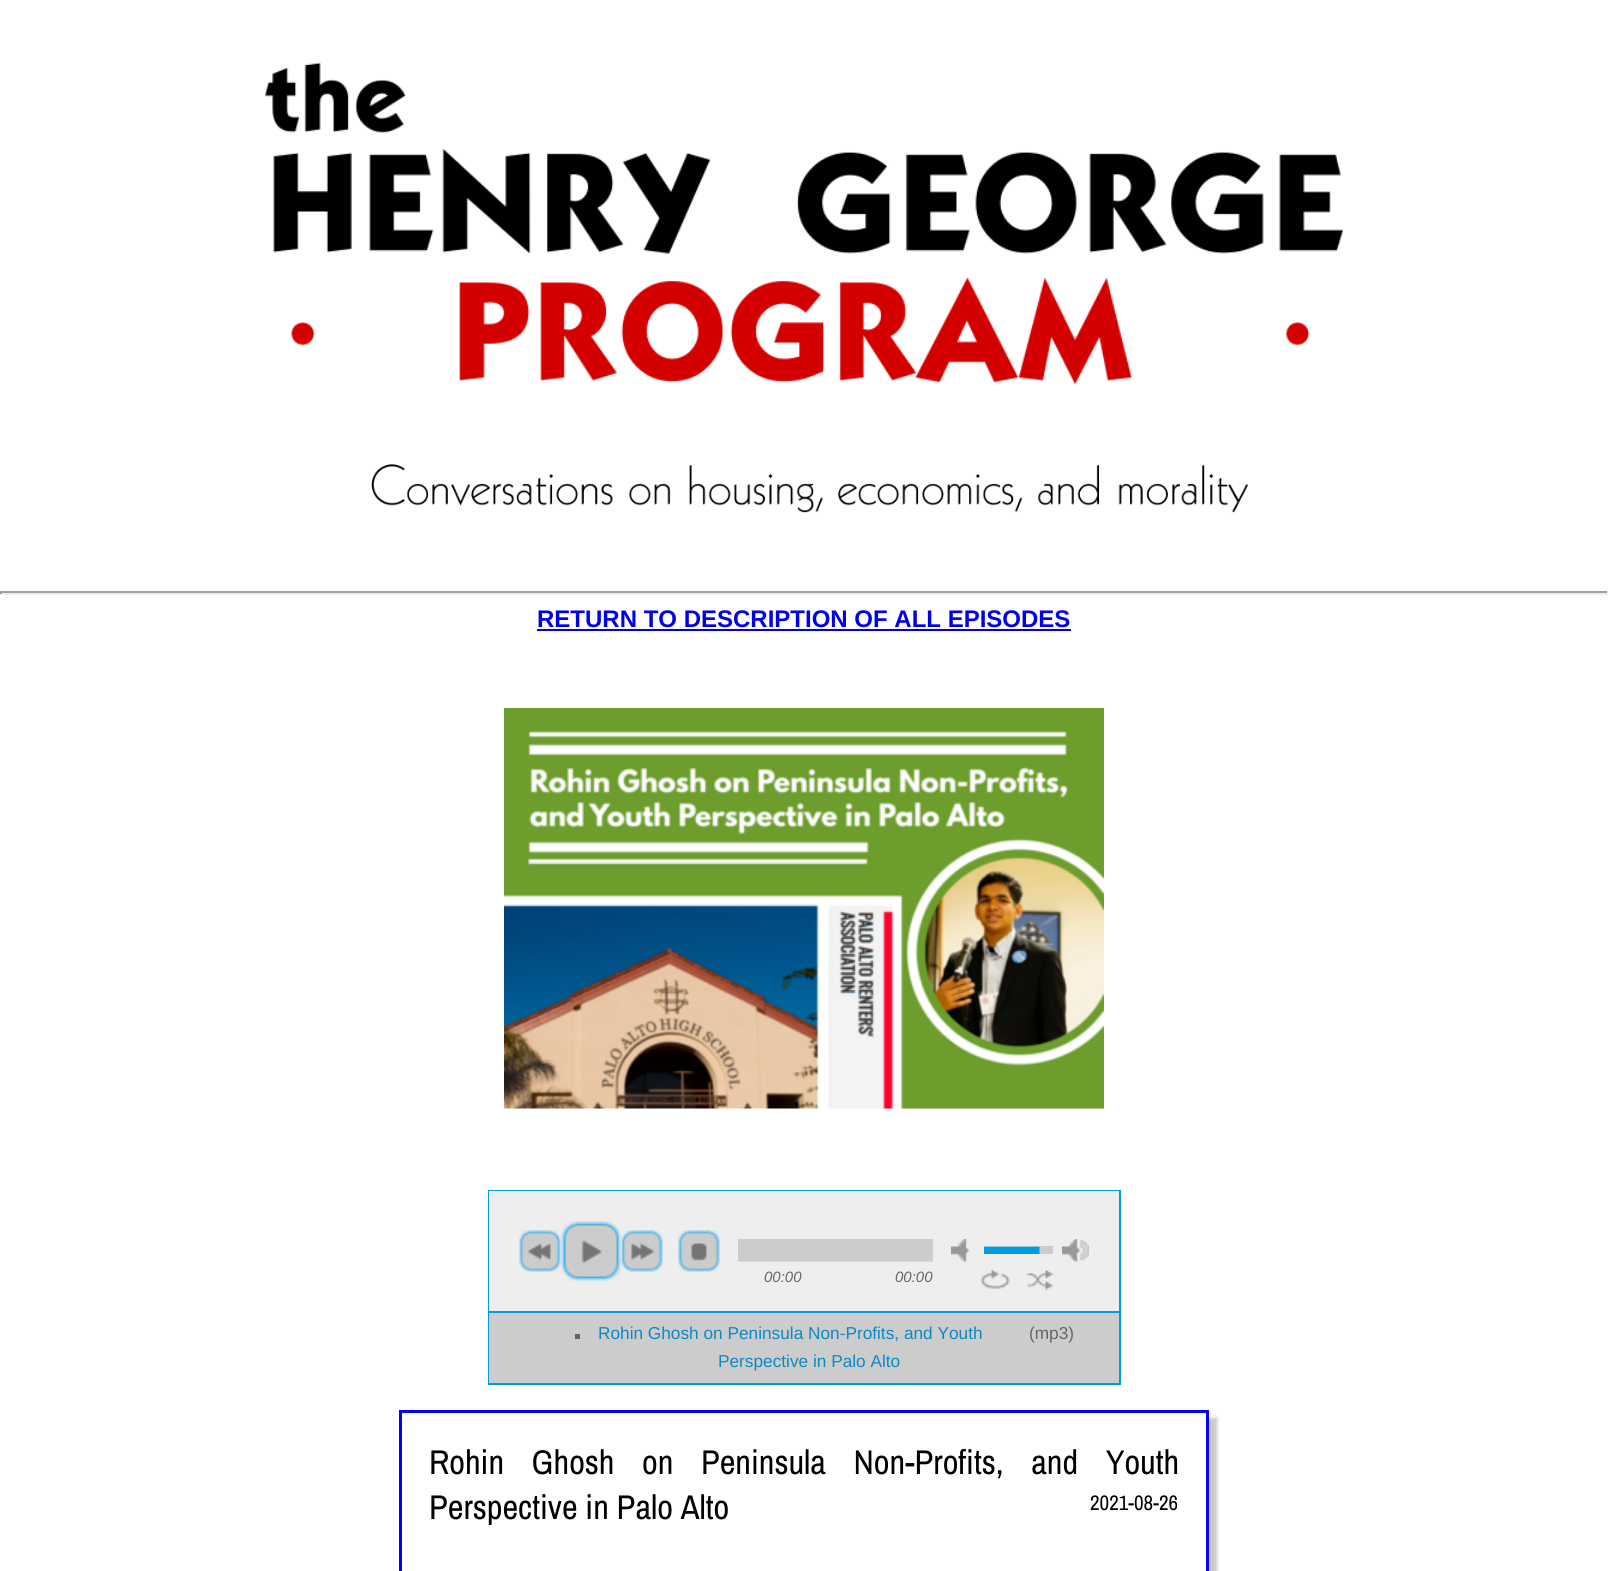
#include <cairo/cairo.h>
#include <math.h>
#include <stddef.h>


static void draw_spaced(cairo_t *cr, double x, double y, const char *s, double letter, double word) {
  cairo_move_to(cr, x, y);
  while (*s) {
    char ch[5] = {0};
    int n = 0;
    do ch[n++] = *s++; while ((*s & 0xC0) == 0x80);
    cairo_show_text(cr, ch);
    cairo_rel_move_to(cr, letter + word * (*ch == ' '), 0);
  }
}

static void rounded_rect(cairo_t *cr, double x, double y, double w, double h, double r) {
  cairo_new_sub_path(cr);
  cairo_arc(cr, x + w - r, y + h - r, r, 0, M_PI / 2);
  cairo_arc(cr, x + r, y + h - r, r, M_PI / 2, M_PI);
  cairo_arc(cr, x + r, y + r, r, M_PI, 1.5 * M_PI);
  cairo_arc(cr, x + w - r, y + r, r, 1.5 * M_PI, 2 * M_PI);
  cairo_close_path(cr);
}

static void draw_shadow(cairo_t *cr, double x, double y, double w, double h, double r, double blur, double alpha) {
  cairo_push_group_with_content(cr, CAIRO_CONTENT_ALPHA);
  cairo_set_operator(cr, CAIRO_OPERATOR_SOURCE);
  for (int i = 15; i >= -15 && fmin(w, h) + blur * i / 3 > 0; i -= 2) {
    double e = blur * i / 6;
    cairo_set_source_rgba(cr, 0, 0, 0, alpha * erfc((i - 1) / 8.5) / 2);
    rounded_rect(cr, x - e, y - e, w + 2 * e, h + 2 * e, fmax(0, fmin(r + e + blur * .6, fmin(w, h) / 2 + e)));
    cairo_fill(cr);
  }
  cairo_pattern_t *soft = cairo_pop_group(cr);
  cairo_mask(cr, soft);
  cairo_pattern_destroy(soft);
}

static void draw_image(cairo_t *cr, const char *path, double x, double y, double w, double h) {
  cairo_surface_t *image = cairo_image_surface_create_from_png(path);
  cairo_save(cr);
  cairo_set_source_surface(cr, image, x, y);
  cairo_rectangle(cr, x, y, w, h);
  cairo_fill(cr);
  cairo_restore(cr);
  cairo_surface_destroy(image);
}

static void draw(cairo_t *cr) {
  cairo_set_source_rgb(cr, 1, 1, 1);
  cairo_paint(cr);
  draw_image(cr, "images/1.png", 265, 62, 1078, 323);
  draw_image(cr, "images/2.png", 371, 464, 877, 49);
  cairo_set_source_rgb(cr, 159 / 255.0, 159 / 255.0, 159 / 255.0);
  cairo_rectangle(cr, 0, 591, 1608, 2);
  cairo_fill(cr);
  cairo_set_source_rgb(cr, 238 / 255.0, 238 / 255.0, 238 / 255.0);
  cairo_rectangle(cr, 1607, 591, 1, 3);
  cairo_fill(cr);
  cairo_rectangle(cr, 0, 593, 1608, 2);
  cairo_fill(cr);
  cairo_set_source_rgb(cr, 159 / 255.0, 159 / 255.0, 159 / 255.0);
  cairo_rectangle(cr, 0, 591, 2, 3);
  cairo_fill(cr);
  cairo_set_source_rgb(cr, 0, 0, 238 / 255.0);
  cairo_rectangle(cr, 537, 629, 534, 2);
  cairo_fill(cr);
  draw_image(cr, "images/3.png", 504, 708, 600, 401);
  cairo_rectangle(cr, 489, 1191, 631, 193);
  cairo_set_source_rgb(cr, 0, 155 / 255.0, 227 / 255.0);
  cairo_stroke(cr);
  cairo_set_source_rgb(cr, 238 / 255.0, 238 / 255.0, 238 / 255.0);
  cairo_rectangle(cr, 489, 1191, 630, 120);
  cairo_fill(cr);
  draw_image(cr, "images/4.png", 519, 1230, 42, 42);
  draw_image(cr, "images/5.png", 561, 1221, 60, 60);
  draw_image(cr, "images/6.png", 621, 1230, 42, 42);
  draw_image(cr, "images/7.png", 678, 1230, 42, 42);
  cairo_set_source_rgb(cr, 221 / 255.0, 221 / 255.0, 221 / 255.0);
  cairo_rectangle(cr, 738, 1261, 195, 1);
  cairo_fill(cr);
  draw_image(cr, "images/8.png", 738, 1239, 195, 23);
  draw_image(cr, "images/9.png", 951, 1239, 27, 23);
  cairo_set_source_rgb(cr, 204 / 255.0, 204 / 255.0, 204 / 255.0);
  cairo_rectangle(cr, 984, 1246, 69, 8);
  cairo_fill(cr);
  draw_image(cr, "images/10.png", 984, 1246, 56, 8);
  draw_image(cr, "images/11.png", 1062, 1239, 27, 23);
  draw_image(cr, "images/12.png", 981, 1269, 29, 20);
  draw_image(cr, "images/13.png", 1027, 1270, 27, 21);
  cairo_rectangle(cr, 489, 1313, 630, 70);
  cairo_fill(cr);
  cairo_set_source_rgb(cr, 0, 155 / 255.0, 227 / 255.0);
  cairo_rectangle(cr, 489, 1311, 630, 2);
  cairo_fill(cr);
  cairo_set_source_rgb(cr, 102 / 255.0, 102 / 255.0, 102 / 255.0);
  cairo_rectangle(cr, 575, 1334, 5, 5);
  cairo_fill(cr);
  cairo_save(cr);
  cairo_rectangle(cr, 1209, 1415, 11, 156);
  cairo_clip(cr);
  cairo_set_source_rgb(cr, 85 / 255.0, 85 / 255.0, 85 / 255.0);
  draw_shadow(cr, 407, 1418, 810, 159, 0, 2, 0.33);
  cairo_restore(cr);
  cairo_rectangle(cr, 400.5, 1411.5, 807, 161);
  cairo_set_source_rgb(cr, 0, 0, 1);
  cairo_set_line_width(cr, 3);
  cairo_stroke(cr);
  cairo_select_font_face(cr, "Liberation Sans", CAIRO_FONT_SLANT_NORMAL, CAIRO_FONT_WEIGHT_BOLD);
  cairo_set_font_size(cr, 24);
  cairo_set_source_rgb(cr, 0, 0, 238 / 255.0);
  cairo_move_to(cr, 537, 627);
  cairo_show_text(cr, "RETURN TO DESCRIPTION OF ALL EPISODES");
  cairo_select_font_face(cr, "Liberation Sans", CAIRO_FONT_SLANT_ITALIC, CAIRO_FONT_WEIGHT_NORMAL);
  cairo_set_font_size(cr, 15);
  cairo_set_source_rgb(cr, 102 / 255.0, 102 / 255.0, 102 / 255.0);
  cairo_move_to(cr, 764, 1282);
  cairo_show_text(cr, "00:00");
  cairo_move_to(cr, 895, 1282);
  cairo_show_text(cr, "00:00");
  cairo_select_font_face(cr, "Liberation Sans", CAIRO_FONT_SLANT_NORMAL, CAIRO_FONT_WEIGHT_NORMAL);
  cairo_set_font_size(cr, 17.25);
  cairo_set_source_rgb(cr, 13 / 255.0, 136 / 255.0, 193 / 255.0);
  cairo_move_to(cr, 598, 1339);
  cairo_show_text(cr, "Rohin Ghosh on Peninsula Non-Profits, and Youth");
  cairo_set_source_rgb(cr, 102 / 255.0, 102 / 255.0, 102 / 255.0);
  cairo_move_to(cr, 1029, 1339);
  cairo_show_text(cr, "(mp3)");
  cairo_set_source_rgb(cr, 13 / 255.0, 136 / 255.0, 193 / 255.0);
  cairo_move_to(cr, 718, 1367);
  cairo_show_text(cr, "Perspective in Palo Alto");
  cairo_select_font_face(cr, "Archivo Narrow", CAIRO_FONT_SLANT_NORMAL, CAIRO_FONT_WEIGHT_NORMAL);
  cairo_set_font_size(cr, 34.3);
  cairo_set_source_rgb(cr, 0, 0, 0);
  draw_spaced(cr, 429, 1474, "Rohin Ghosh on Peninsula Non-Profits, and Youth", 0, 19.75);
  cairo_move_to(cr, 429, 1519);
  cairo_show_text(cr, "Perspective in Palo Alto");
  cairo_set_font_size(cr, 21);
  cairo_move_to(cr, 1090, 1510);
  cairo_show_text(cr, "2021-08-26");
}

int main(void) {
  cairo_surface_t *surface = cairo_image_surface_create(CAIRO_FORMAT_RGB24, 1608, 1571);
  cairo_t *cr = cairo_create(surface);
  cairo_font_options_t *options = cairo_font_options_create();
  cairo_font_options_set_hint_metrics(options, CAIRO_HINT_METRICS_OFF);
  cairo_font_options_set_hint_style(options, CAIRO_HINT_STYLE_NONE);
  cairo_set_font_options(cr, options);
  cairo_set_miter_limit(cr, 4);
  draw(cr);
  cairo_surface_write_to_png(surface, "out.png");
  cairo_font_options_destroy(options);
  cairo_destroy(cr);
  cairo_surface_destroy(surface);
  return 0;
}
